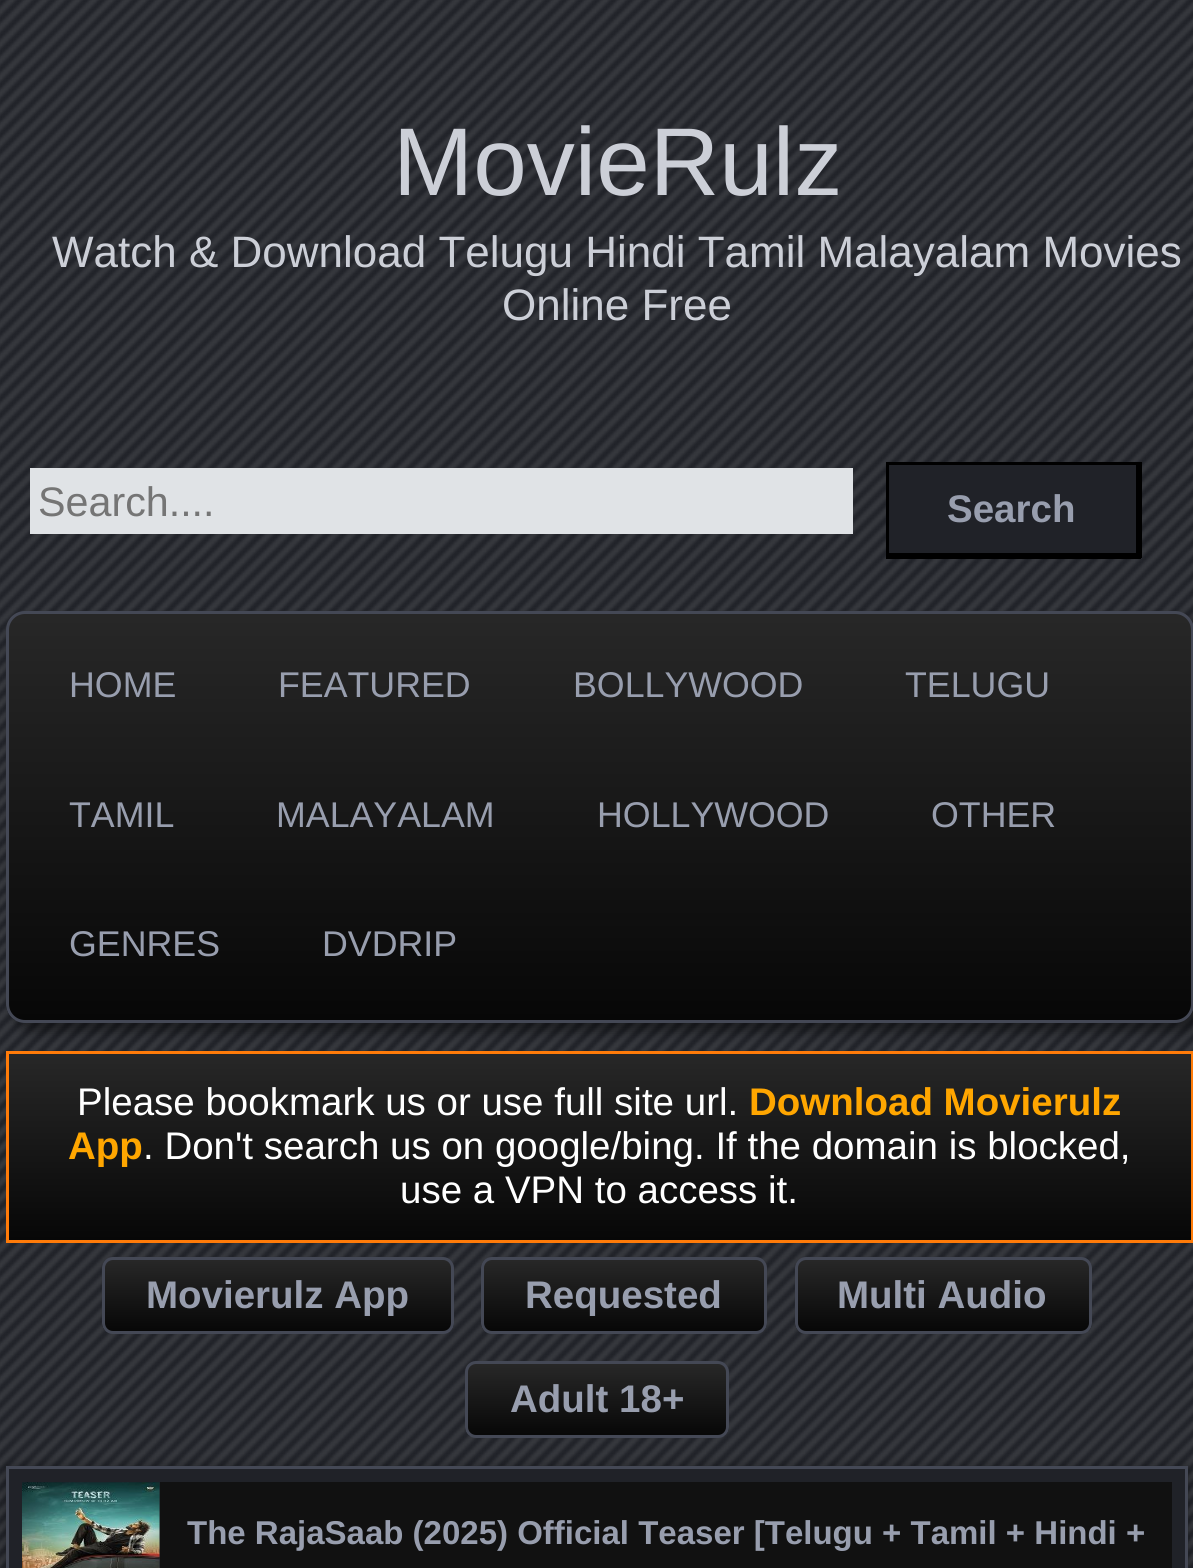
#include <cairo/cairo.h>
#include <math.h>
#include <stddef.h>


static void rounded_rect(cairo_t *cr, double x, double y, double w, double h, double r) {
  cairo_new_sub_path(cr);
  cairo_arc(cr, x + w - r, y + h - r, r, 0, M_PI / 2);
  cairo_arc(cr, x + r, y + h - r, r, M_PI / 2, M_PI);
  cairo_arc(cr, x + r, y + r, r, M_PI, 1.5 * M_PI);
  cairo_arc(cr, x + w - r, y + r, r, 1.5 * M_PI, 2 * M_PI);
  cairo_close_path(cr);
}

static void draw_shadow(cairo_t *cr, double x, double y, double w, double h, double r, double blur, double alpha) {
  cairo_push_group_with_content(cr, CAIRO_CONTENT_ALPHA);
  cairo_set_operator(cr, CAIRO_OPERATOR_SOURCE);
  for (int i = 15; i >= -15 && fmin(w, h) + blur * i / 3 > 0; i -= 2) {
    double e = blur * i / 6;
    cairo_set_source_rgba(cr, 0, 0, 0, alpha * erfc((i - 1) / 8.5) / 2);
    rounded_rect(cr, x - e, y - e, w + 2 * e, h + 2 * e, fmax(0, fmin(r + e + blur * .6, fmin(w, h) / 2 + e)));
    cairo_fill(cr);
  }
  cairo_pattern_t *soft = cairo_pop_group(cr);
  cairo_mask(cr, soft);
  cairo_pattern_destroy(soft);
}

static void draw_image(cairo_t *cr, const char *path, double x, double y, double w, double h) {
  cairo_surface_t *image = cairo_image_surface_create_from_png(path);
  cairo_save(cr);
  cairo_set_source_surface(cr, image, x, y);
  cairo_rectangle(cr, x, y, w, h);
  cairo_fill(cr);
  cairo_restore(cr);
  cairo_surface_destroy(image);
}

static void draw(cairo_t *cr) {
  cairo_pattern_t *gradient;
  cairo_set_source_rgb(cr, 32 / 255.0, 34 / 255.0, 40 / 255.0);
  cairo_paint(cr);
  draw_image(cr, "images/1.png", 0, 0, 1193, 1568);
  cairo_set_source_rgb(cr, 224 / 255.0, 227 / 255.0, 230 / 255.0);
  cairo_rectangle(cr, 30, 468, 823, 66);
  cairo_fill(cr);
  cairo_set_source_rgb(cr, 32 / 255.0, 34 / 255.0, 40 / 255.0);
  cairo_rectangle(cr, 889, 465, 247, 88);
  cairo_fill(cr);
  cairo_set_source_rgb(cr, 0, 0, 0);
  cairo_rectangle(cr, 886, 462, 255, 3);
  cairo_fill(cr);
  cairo_rectangle(cr, 1136, 462, 6, 96);
  cairo_fill(cr);
  cairo_rectangle(cr, 886, 553, 255, 6);
  cairo_fill(cr);
  cairo_rectangle(cr, 886, 462, 3, 96);
  cairo_fill(cr);
  cairo_set_source_rgb(cr, 0, 0, 0);
  draw_shadow(cr, 14, 619, 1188, 412, 19, 6, 0.45);
  cairo_save(cr);
  rounded_rect(cr, 6, 611, 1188, 412, 19);
  cairo_clip(cr);
  gradient = cairo_pattern_create_linear(600, 613, 600, 1020);
  cairo_pattern_add_color_stop_rgba(gradient, 0.01, 39 / 255.0, 39 / 255.0, 39 / 255.0, 1);
  cairo_pattern_add_color_stop_rgba(gradient, 1, 7 / 255.0, 7 / 255.0, 7 / 255.0, 1);
  cairo_set_source(cr, gradient);
  cairo_pattern_destroy(gradient);
  cairo_rectangle(cr, 6, 613, 1187, 407);
  cairo_fill(cr);
  cairo_restore(cr);
  rounded_rect(cr, 7.5, 612.5, 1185, 409, 17.5);
  cairo_set_source_rgb(cr, 68 / 255.0, 72 / 255.0, 85 / 255.0);
  cairo_set_line_width(cr, 3);
  cairo_stroke(cr);
  gradient = cairo_pattern_create_linear(600, 1053, 600, 1240);
  cairo_pattern_add_color_stop_rgba(gradient, 0.01, 39 / 255.0, 39 / 255.0, 39 / 255.0, 1);
  cairo_pattern_add_color_stop_rgba(gradient, 1, 7 / 255.0, 7 / 255.0, 7 / 255.0, 1);
  cairo_set_source(cr, gradient);
  cairo_pattern_destroy(gradient);
  cairo_rectangle(cr, 9, 1054, 1182, 186);
  cairo_fill(cr);
  cairo_rectangle(cr, 7.5, 1052.5, 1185, 189);
  cairo_set_source_rgb(cr, 1, 123 / 255.0, 9 / 255.0);
  cairo_stroke(cr);
  cairo_save(cr);
  rounded_rect(cr, 102, 1257, 352, 77, 11);
  cairo_clip(cr);
  gradient = cairo_pattern_create_linear(278, 1260, 278, 1331);
  cairo_pattern_add_color_stop_rgba(gradient, 0.01, 39 / 255.0, 39 / 255.0, 39 / 255.0, 1);
  cairo_pattern_add_color_stop_rgba(gradient, 1, 7 / 255.0, 7 / 255.0, 7 / 255.0, 1);
  cairo_set_source(cr, gradient);
  cairo_pattern_destroy(gradient);
  cairo_rectangle(cr, 102, 1260, 352, 71);
  cairo_fill(cr);
  cairo_restore(cr);
  rounded_rect(cr, 103.5, 1258.5, 349, 74, 9.5);
  cairo_set_source_rgb(cr, 68 / 255.0, 72 / 255.0, 85 / 255.0);
  cairo_stroke(cr);
  cairo_save(cr);
  rounded_rect(cr, 481, 1257, 286, 77, 11);
  cairo_clip(cr);
  gradient = cairo_pattern_create_linear(624, 1260, 624, 1331);
  cairo_pattern_add_color_stop_rgba(gradient, 0.01, 39 / 255.0, 39 / 255.0, 39 / 255.0, 1);
  cairo_pattern_add_color_stop_rgba(gradient, 1, 7 / 255.0, 7 / 255.0, 7 / 255.0, 1);
  cairo_set_source(cr, gradient);
  cairo_pattern_destroy(gradient);
  cairo_rectangle(cr, 481, 1260, 286, 71);
  cairo_fill(cr);
  cairo_restore(cr);
  rounded_rect(cr, 482.5, 1258.5, 283, 74, 9.5);
  cairo_stroke(cr);
  cairo_save(cr);
  rounded_rect(cr, 795, 1257, 297, 77, 11);
  cairo_clip(cr);
  gradient = cairo_pattern_create_linear(943, 1260, 943, 1331);
  cairo_pattern_add_color_stop_rgba(gradient, 0.01, 39 / 255.0, 39 / 255.0, 39 / 255.0, 1);
  cairo_pattern_add_color_stop_rgba(gradient, 1, 7 / 255.0, 7 / 255.0, 7 / 255.0, 1);
  cairo_set_source(cr, gradient);
  cairo_pattern_destroy(gradient);
  cairo_rectangle(cr, 795, 1260, 297, 71);
  cairo_fill(cr);
  cairo_restore(cr);
  rounded_rect(cr, 796.5, 1258.5, 294, 74, 9.5);
  cairo_stroke(cr);
  cairo_save(cr);
  rounded_rect(cr, 465, 1361, 264, 77, 11);
  cairo_clip(cr);
  gradient = cairo_pattern_create_linear(597, 1364, 597, 1436);
  cairo_pattern_add_color_stop_rgba(gradient, 0.01, 39 / 255.0, 39 / 255.0, 39 / 255.0, 1);
  cairo_pattern_add_color_stop_rgba(gradient, 1, 7 / 255.0, 7 / 255.0, 7 / 255.0, 1);
  cairo_set_source(cr, gradient);
  cairo_pattern_destroy(gradient);
  cairo_rectangle(cr, 465, 1364, 264, 72);
  cairo_fill(cr);
  cairo_restore(cr);
  rounded_rect(cr, 466.5, 1362.5, 261, 74, 9.5);
  cairo_stroke(cr);
  cairo_set_source_rgb(cr, 0, 0, 0);
  draw_shadow(cr, 6, 1466, 1182, 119, 0, 5.5, 0.3);
  cairo_set_source_rgb(cr, 32 / 255.0, 34 / 255.0, 40 / 255.0);
  cairo_rectangle(cr, 7.5, 1467.5, 1179, 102);
  cairo_fill_preserve(cr);
  cairo_set_source_rgb(cr, 68 / 255.0, 72 / 255.0, 85 / 255.0);
  cairo_stroke(cr);
  draw_image(cr, "images/2.png", 22, 1482, 138, 86);
  cairo_set_source_rgb(cr, 17 / 255.0, 17 / 255.0, 17 / 255.0);
  cairo_rectangle(cr, 160, 1482, 1012, 86);
  cairo_fill(cr);
  cairo_select_font_face(cr, "Liberation Sans", CAIRO_FONT_SLANT_NORMAL, CAIRO_FONT_WEIGHT_NORMAL);
  cairo_set_font_size(cr, 96.25);
  cairo_set_source_rgb(cr, 204 / 255.0, 207 / 255.0, 215 / 255.0);
  cairo_move_to(cr, 393, 195);
  cairo_show_text(cr, "MovieRulz");
  cairo_set_font_size(cr, 44);
  cairo_move_to(cr, 52, 267);
  cairo_show_text(cr, "Watch & Download Telugu Hindi Tamil Malayalam Movies");
  cairo_move_to(cr, 502, 320);
  cairo_show_text(cr, "Online Free");
  cairo_set_font_size(cr, 41.25);
  cairo_set_source_rgb(cr, 117 / 255.0, 117 / 255.0, 117 / 255.0);
  cairo_move_to(cr, 38, 516);
  cairo_show_text(cr, "Search....");
  cairo_select_font_face(cr, "Liberation Sans", CAIRO_FONT_SLANT_NORMAL, CAIRO_FONT_WEIGHT_BOLD);
  cairo_set_font_size(cr, 38.5);
  cairo_set_source_rgb(cr, 152 / 255.0, 158 / 255.0, 174 / 255.0);
  cairo_move_to(cr, 947, 522);
  cairo_show_text(cr, "Search");
  cairo_select_font_face(cr, "Liberation Sans", CAIRO_FONT_SLANT_NORMAL, CAIRO_FONT_WEIGHT_NORMAL);
  cairo_set_font_size(cr, 35.75);
  cairo_move_to(cr, 69, 697);
  cairo_show_text(cr, "HOME");
  cairo_move_to(cr, 278, 697);
  cairo_show_text(cr, "FEATURED");
  cairo_move_to(cr, 573, 697);
  cairo_show_text(cr, "BOLLYWOOD");
  cairo_move_to(cr, 905, 697);
  cairo_show_text(cr, "TELUGU");
  cairo_move_to(cr, 69, 827);
  cairo_show_text(cr, "TAMIL");
  cairo_move_to(cr, 276, 827);
  cairo_show_text(cr, "MALAYALAM");
  cairo_move_to(cr, 597, 827);
  cairo_show_text(cr, "HOLLYWOOD");
  cairo_move_to(cr, 931, 827);
  cairo_show_text(cr, "OTHER");
  cairo_move_to(cr, 69, 956);
  cairo_show_text(cr, "GENRES");
  cairo_move_to(cr, 322, 956);
  cairo_show_text(cr, "DVDRIP");
  cairo_set_font_size(cr, 38.5);
  cairo_set_source_rgb(cr, 1, 1, 1);
  cairo_move_to(cr, 77, 1115);
  cairo_show_text(cr, "Please bookmark us or use full site url.");
  cairo_select_font_face(cr, "Liberation Sans", CAIRO_FONT_SLANT_NORMAL, CAIRO_FONT_WEIGHT_BOLD);
  cairo_set_source_rgb(cr, 1, 166 / 255.0, 0);
  cairo_move_to(cr, 749, 1115);
  cairo_show_text(cr, "Download Movierulz");
  cairo_move_to(cr, 68, 1159);
  cairo_show_text(cr, "App");
  cairo_select_font_face(cr, "Liberation Sans", CAIRO_FONT_SLANT_NORMAL, CAIRO_FONT_WEIGHT_NORMAL);
  cairo_set_source_rgb(cr, 1, 1, 1);
  cairo_move_to(cr, 143, 1159);
  cairo_show_text(cr, ". Don't search us on google/bing. If the domain is blocked,");
  cairo_move_to(cr, 400, 1203);
  cairo_show_text(cr, "use a VPN to access it.");
  cairo_select_font_face(cr, "Liberation Sans", CAIRO_FONT_SLANT_NORMAL, CAIRO_FONT_WEIGHT_BOLD);
  cairo_set_source_rgb(cr, 152 / 255.0, 158 / 255.0, 174 / 255.0);
  cairo_move_to(cr, 146, 1308);
  cairo_show_text(cr, "Movierulz App");
  cairo_move_to(cr, 525, 1308);
  cairo_show_text(cr, "Requested");
  cairo_move_to(cr, 837, 1308);
  cairo_show_text(cr, "Multi Audio");
  cairo_move_to(cr, 510, 1412);
  cairo_show_text(cr, "Adult 18+");
  cairo_set_font_size(cr, 33);
  cairo_move_to(cr, 187, 1544);
  cairo_show_text(cr, "The RajaSaab (2025) Official Teaser [Telugu + Tamil + Hindi +");
}

int main(void) {
  cairo_surface_t *surface = cairo_image_surface_create(CAIRO_FORMAT_RGB24, 1193, 1568);
  cairo_t *cr = cairo_create(surface);
  cairo_font_options_t *options = cairo_font_options_create();
  cairo_font_options_set_hint_metrics(options, CAIRO_HINT_METRICS_OFF);
  cairo_font_options_set_hint_style(options, CAIRO_HINT_STYLE_NONE);
  cairo_set_font_options(cr, options);
  cairo_set_miter_limit(cr, 4);
  draw(cr);
  cairo_surface_write_to_png(surface, "out.png");
  cairo_font_options_destroy(options);
  cairo_destroy(cr);
  cairo_surface_destroy(surface);
  return 0;
}
